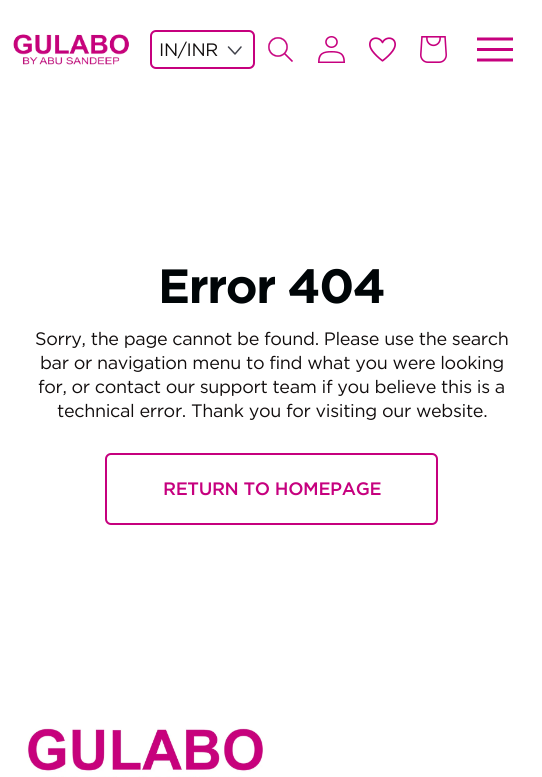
#include <cairo/cairo.h>
#include <math.h>
#include <stddef.h>


static void draw_spaced(cairo_t *cr, double x, double y, const char *s, double letter, double word) {
  cairo_move_to(cr, x, y);
  while (*s) {
    char ch[5] = {0};
    int n = 0;
    do ch[n++] = *s++; while ((*s & 0xC0) == 0x80);
    cairo_show_text(cr, ch);
    cairo_rel_move_to(cr, letter + word * (*ch == ' '), 0);
  }
}

static void rounded_rect(cairo_t *cr, double x, double y, double w, double h, double r) {
  cairo_new_sub_path(cr);
  cairo_arc(cr, x + w - r, y + h - r, r, 0, M_PI / 2);
  cairo_arc(cr, x + r, y + h - r, r, M_PI / 2, M_PI);
  cairo_arc(cr, x + r, y + r, r, M_PI, 1.5 * M_PI);
  cairo_arc(cr, x + w - r, y + r, r, 1.5 * M_PI, 2 * M_PI);
  cairo_close_path(cr);
}

static void draw_image(cairo_t *cr, const char *path, double x, double y, double w, double h) {
  cairo_surface_t *image = cairo_image_surface_create_from_png(path);
  cairo_save(cr);
  cairo_set_source_surface(cr, image, x, y);
  cairo_rectangle(cr, x, y, w, h);
  cairo_fill(cr);
  cairo_restore(cr);
  cairo_surface_destroy(image);
}

static void draw(cairo_t *cr) {
  cairo_set_source_rgb(cr, 1, 1, 1);
  cairo_paint(cr);
  draw_image(cr, "images/1.png", 13, 34, 116, 31);
  rounded_rect(cr, 151, 31, 103, 37, 5);
  cairo_set_source_rgb(cr, 198 / 255.0, 0, 126 / 255.0);
  cairo_stroke(cr);
  cairo_new_path(cr);
  cairo_move_to(cr, 241, 47);
  cairo_line_to(cr, 235, 54);
  cairo_move_to(cr, 228.5, 47);
  cairo_line_to(cr, 235, 54);
  cairo_set_source_rgb(cr, 65 / 255.0, 67 / 255.0, 76 / 255.0);
  cairo_set_line_width(cr, 1.5);
  cairo_set_line_cap(cr, CAIRO_LINE_CAP_ROUND);
  cairo_stroke(cr);
  draw_image(cr, "images/2.png", 268, 37, 25, 25);
  draw_image(cr, "images/3.png", 318, 36, 27, 27);
  draw_image(cr, "images/4.png", 369, 37, 27, 25);
  draw_image(cr, "images/5.png", 420, 36, 27, 27);
  cairo_set_source_rgb(cr, 198 / 255.0, 0, 126 / 255.0);
  cairo_new_path(cr);
  cairo_move_to(cr, 477, 61.5);
  cairo_line_to(cr, 477, 58.5);
  cairo_line_to(cr, 513, 58.5);
  cairo_line_to(cr, 513, 61.5);
  cairo_close_path(cr);
  cairo_move_to(cr, 477, 51);
  cairo_line_to(cr, 477, 48);
  cairo_line_to(cr, 513, 48);
  cairo_line_to(cr, 513, 51);
  cairo_close_path(cr);
  cairo_move_to(cr, 477, 40.5);
  cairo_line_to(cr, 477, 37.5);
  cairo_line_to(cr, 513, 37.5);
  cairo_line_to(cr, 513, 40.5);
  cairo_close_path(cr);
  cairo_fill(cr);
  rounded_rect(cr, 106, 454, 331, 70, 5);
  cairo_set_line_width(cr, 2);
  cairo_set_line_cap(cr, CAIRO_LINE_CAP_BUTT);
  cairo_stroke(cr);
  draw_image(cr, "images/6.png", 27, 728, 236, 49);
  cairo_select_font_face(cr, "Gotham", CAIRO_FONT_SLANT_NORMAL, CAIRO_FONT_WEIGHT_NORMAL);
  cairo_set_font_size(cr, 18);
  cairo_set_source_rgb(cr, 17 / 255.0, 13 / 255.0, 13 / 255.0);
  draw_spaced(cr, 159, 56, "IN/INR", -0.35, 0);
  cairo_select_font_face(cr, "Gotham", CAIRO_FONT_SLANT_NORMAL, CAIRO_FONT_WEIGHT_BOLD);
  cairo_set_font_size(cr, 48);
  cairo_set_source_rgb(cr, 0, 5 / 255.0, 7 / 255.0);
  draw_spaced(cr, 158, 303, "Error 404", -1.5, 0);
  cairo_select_font_face(cr, "Gotham", CAIRO_FONT_SLANT_NORMAL, CAIRO_FONT_WEIGHT_NORMAL);
  cairo_set_font_size(cr, 18);
  cairo_set_source_rgb(cr, 17 / 255.0, 13 / 255.0, 13 / 255.0);
  draw_spaced(cr, 35, 345, "Sorry, the page cannot be found. Please use the search", -0.35, 0);
  draw_spaced(cr, 40, 369, "bar or navigation menu to find what you were looking", -0.35, 0);
  draw_spaced(cr, 38, 393, "for, or contact our support team if you believe this is a", -0.35, 0);
  draw_spaced(cr, 57, 417, "technical error. Thank you for visiting our website.", -0.35, 0);
  cairo_select_font_face(cr, "Gotham Medium", CAIRO_FONT_SLANT_NORMAL, CAIRO_FONT_WEIGHT_NORMAL);
  cairo_set_source_rgb(cr, 198 / 255.0, 0, 126 / 255.0);
  draw_spaced(cr, 163, 495, "RETURN TO HOMEPAGE", -0.35, 0);
}

int main(void) {
  cairo_surface_t *surface = cairo_image_surface_create(CAIRO_FORMAT_RGB24, 542, 777);
  cairo_t *cr = cairo_create(surface);
  cairo_font_options_t *options = cairo_font_options_create();
  cairo_font_options_set_hint_metrics(options, CAIRO_HINT_METRICS_OFF);
  cairo_font_options_set_hint_style(options, CAIRO_HINT_STYLE_NONE);
  cairo_set_font_options(cr, options);
  cairo_set_miter_limit(cr, 4);
  draw(cr);
  cairo_surface_write_to_png(surface, "out.png");
  cairo_font_options_destroy(options);
  cairo_destroy(cr);
  cairo_surface_destroy(surface);
  return 0;
}
